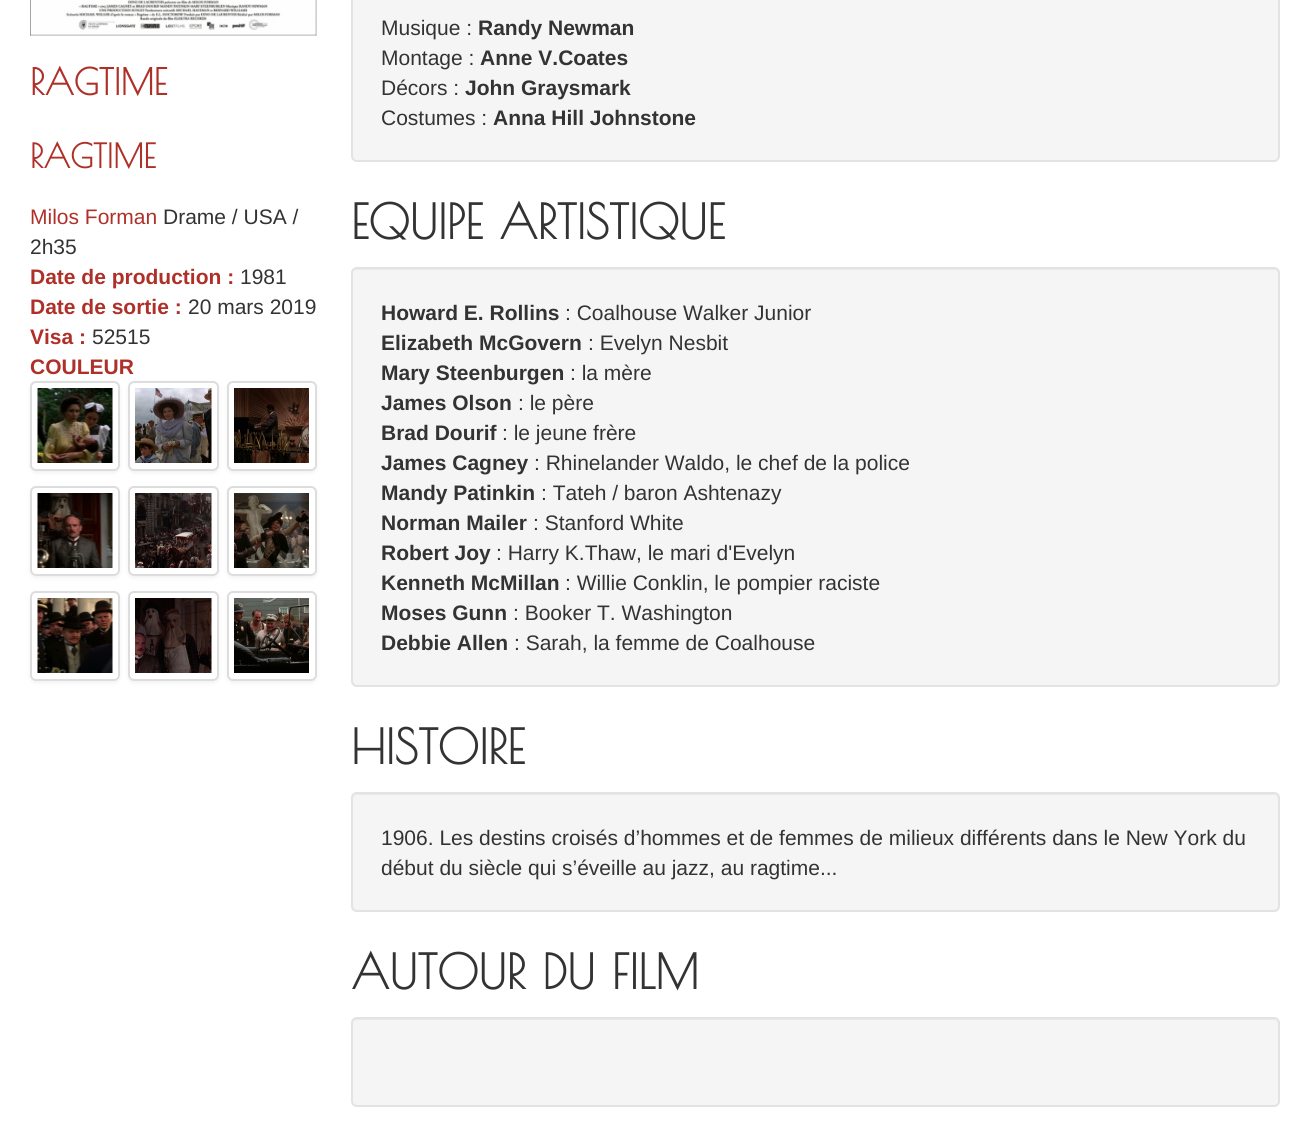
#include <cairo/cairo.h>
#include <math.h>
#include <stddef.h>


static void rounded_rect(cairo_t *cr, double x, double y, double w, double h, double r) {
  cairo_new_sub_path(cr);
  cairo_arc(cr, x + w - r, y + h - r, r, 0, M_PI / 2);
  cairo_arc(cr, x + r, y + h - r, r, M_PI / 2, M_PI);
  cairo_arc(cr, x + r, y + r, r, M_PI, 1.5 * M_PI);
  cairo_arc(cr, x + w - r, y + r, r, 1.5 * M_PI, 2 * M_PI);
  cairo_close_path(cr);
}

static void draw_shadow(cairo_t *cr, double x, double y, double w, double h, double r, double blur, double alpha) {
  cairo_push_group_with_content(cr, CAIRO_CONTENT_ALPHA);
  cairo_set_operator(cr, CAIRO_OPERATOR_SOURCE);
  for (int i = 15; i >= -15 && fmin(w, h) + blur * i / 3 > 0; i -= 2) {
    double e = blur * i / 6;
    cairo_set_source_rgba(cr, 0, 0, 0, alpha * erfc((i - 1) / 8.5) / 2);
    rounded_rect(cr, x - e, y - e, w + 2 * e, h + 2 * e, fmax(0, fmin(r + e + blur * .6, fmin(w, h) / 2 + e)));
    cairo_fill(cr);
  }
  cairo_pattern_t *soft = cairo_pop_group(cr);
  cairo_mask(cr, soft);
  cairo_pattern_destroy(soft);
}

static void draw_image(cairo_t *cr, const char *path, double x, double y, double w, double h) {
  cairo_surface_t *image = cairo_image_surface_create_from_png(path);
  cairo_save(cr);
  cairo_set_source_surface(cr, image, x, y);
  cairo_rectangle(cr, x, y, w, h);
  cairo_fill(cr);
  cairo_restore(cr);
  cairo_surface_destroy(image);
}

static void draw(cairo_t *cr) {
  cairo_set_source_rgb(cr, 1, 1, 1);
  cairo_paint(cr);
  draw_image(cr, "images/1.png", 30, 0, 287, 36);
  cairo_save(cr);
  cairo_set_fill_rule(cr, CAIRO_FILL_RULE_EVEN_ODD);
  cairo_new_path(cr);
  cairo_move_to(cr, 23, 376);
  cairo_line_to(cr, 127, 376);
  cairo_line_to(cr, 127, 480);
  cairo_line_to(cr, 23, 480);
  cairo_close_path(cr);
  cairo_move_to(cr, 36, 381);
  cairo_line_to(cr, 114, 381);
  cairo_curve_to(cr, 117.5, 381, 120, 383.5, 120, 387);
  cairo_line_to(cr, 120, 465);
  cairo_curve_to(cr, 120, 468.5, 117.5, 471, 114, 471);
  cairo_line_to(cr, 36, 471);
  cairo_curve_to(cr, 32.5, 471, 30, 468.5, 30, 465);
  cairo_line_to(cr, 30, 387);
  cairo_curve_to(cr, 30, 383.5, 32.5, 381, 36, 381);
  cairo_close_path(cr);
  cairo_clip(cr);
  cairo_set_source_rgb(cr, 0, 0, 0);
  draw_shadow(cr, 30, 383, 90, 90, 6, 2, 0.06);
  cairo_restore(cr);
  rounded_rect(cr, 31, 382, 88, 88, 5);
  cairo_set_source_rgb(cr, 221 / 255.0, 221 / 255.0, 221 / 255.0);
  cairo_stroke(cr);
  draw_image(cr, "images/2.png", 37, 388, 76, 75);
  cairo_save(cr);
  cairo_set_fill_rule(cr, CAIRO_FILL_RULE_EVEN_ODD);
  cairo_new_path(cr);
  cairo_move_to(cr, 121, 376);
  cairo_line_to(cr, 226, 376);
  cairo_line_to(cr, 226, 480);
  cairo_line_to(cr, 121, 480);
  cairo_close_path(cr);
  cairo_move_to(cr, 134, 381);
  cairo_line_to(cr, 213, 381);
  cairo_curve_to(cr, 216.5, 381, 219, 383.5, 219, 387);
  cairo_line_to(cr, 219, 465);
  cairo_curve_to(cr, 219, 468.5, 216.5, 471, 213, 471);
  cairo_line_to(cr, 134, 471);
  cairo_curve_to(cr, 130.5, 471, 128, 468.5, 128, 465);
  cairo_line_to(cr, 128, 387);
  cairo_curve_to(cr, 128, 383.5, 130.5, 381, 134, 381);
  cairo_close_path(cr);
  cairo_clip(cr);
  cairo_set_source_rgb(cr, 0, 0, 0);
  draw_shadow(cr, 128, 383, 91, 90, 6, 2, 0.06);
  cairo_restore(cr);
  rounded_rect(cr, 129, 382, 89, 88, 5);
  cairo_stroke(cr);
  draw_image(cr, "images/3.png", 135, 388, 77, 75);
  cairo_save(cr);
  cairo_set_fill_rule(cr, CAIRO_FILL_RULE_EVEN_ODD);
  cairo_new_path(cr);
  cairo_move_to(cr, 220, 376);
  cairo_line_to(cr, 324, 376);
  cairo_line_to(cr, 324, 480);
  cairo_line_to(cr, 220, 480);
  cairo_close_path(cr);
  cairo_move_to(cr, 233, 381);
  cairo_line_to(cr, 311, 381);
  cairo_curve_to(cr, 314.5, 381, 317, 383.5, 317, 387);
  cairo_line_to(cr, 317, 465);
  cairo_curve_to(cr, 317, 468.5, 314.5, 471, 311, 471);
  cairo_line_to(cr, 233, 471);
  cairo_curve_to(cr, 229.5, 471, 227, 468.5, 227, 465);
  cairo_line_to(cr, 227, 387);
  cairo_curve_to(cr, 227, 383.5, 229.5, 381, 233, 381);
  cairo_close_path(cr);
  cairo_clip(cr);
  cairo_set_source_rgb(cr, 0, 0, 0);
  draw_shadow(cr, 227, 383, 90, 90, 6, 2, 0.06);
  cairo_restore(cr);
  rounded_rect(cr, 228, 382, 88, 88, 5);
  cairo_stroke(cr);
  draw_image(cr, "images/4.png", 234, 388, 75, 75);
  cairo_save(cr);
  cairo_set_fill_rule(cr, CAIRO_FILL_RULE_EVEN_ODD);
  cairo_new_path(cr);
  cairo_move_to(cr, 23, 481);
  cairo_line_to(cr, 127, 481);
  cairo_line_to(cr, 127, 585);
  cairo_line_to(cr, 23, 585);
  cairo_close_path(cr);
  cairo_move_to(cr, 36, 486);
  cairo_line_to(cr, 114, 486);
  cairo_curve_to(cr, 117.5, 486, 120, 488.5, 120, 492);
  cairo_line_to(cr, 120, 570);
  cairo_curve_to(cr, 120, 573.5, 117.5, 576, 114, 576);
  cairo_line_to(cr, 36, 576);
  cairo_curve_to(cr, 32.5, 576, 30, 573.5, 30, 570);
  cairo_line_to(cr, 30, 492);
  cairo_curve_to(cr, 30, 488.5, 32.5, 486, 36, 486);
  cairo_close_path(cr);
  cairo_clip(cr);
  cairo_set_source_rgb(cr, 0, 0, 0);
  draw_shadow(cr, 30, 488, 90, 90, 6, 2, 0.06);
  cairo_restore(cr);
  rounded_rect(cr, 31, 487, 88, 88, 5);
  cairo_stroke(cr);
  draw_image(cr, "images/5.png", 37, 493, 76, 75);
  cairo_save(cr);
  cairo_set_fill_rule(cr, CAIRO_FILL_RULE_EVEN_ODD);
  cairo_new_path(cr);
  cairo_move_to(cr, 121, 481);
  cairo_line_to(cr, 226, 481);
  cairo_line_to(cr, 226, 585);
  cairo_line_to(cr, 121, 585);
  cairo_close_path(cr);
  cairo_move_to(cr, 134, 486);
  cairo_line_to(cr, 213, 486);
  cairo_curve_to(cr, 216.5, 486, 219, 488.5, 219, 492);
  cairo_line_to(cr, 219, 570);
  cairo_curve_to(cr, 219, 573.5, 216.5, 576, 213, 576);
  cairo_line_to(cr, 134, 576);
  cairo_curve_to(cr, 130.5, 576, 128, 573.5, 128, 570);
  cairo_line_to(cr, 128, 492);
  cairo_curve_to(cr, 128, 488.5, 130.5, 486, 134, 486);
  cairo_close_path(cr);
  cairo_clip(cr);
  cairo_set_source_rgb(cr, 0, 0, 0);
  draw_shadow(cr, 128, 488, 91, 90, 6, 2, 0.06);
  cairo_restore(cr);
  rounded_rect(cr, 129, 487, 89, 88, 5);
  cairo_stroke(cr);
  draw_image(cr, "images/6.png", 135, 493, 77, 75);
  cairo_save(cr);
  cairo_set_fill_rule(cr, CAIRO_FILL_RULE_EVEN_ODD);
  cairo_new_path(cr);
  cairo_move_to(cr, 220, 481);
  cairo_line_to(cr, 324, 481);
  cairo_line_to(cr, 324, 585);
  cairo_line_to(cr, 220, 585);
  cairo_close_path(cr);
  cairo_move_to(cr, 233, 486);
  cairo_line_to(cr, 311, 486);
  cairo_curve_to(cr, 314.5, 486, 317, 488.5, 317, 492);
  cairo_line_to(cr, 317, 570);
  cairo_curve_to(cr, 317, 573.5, 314.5, 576, 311, 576);
  cairo_line_to(cr, 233, 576);
  cairo_curve_to(cr, 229.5, 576, 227, 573.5, 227, 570);
  cairo_line_to(cr, 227, 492);
  cairo_curve_to(cr, 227, 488.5, 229.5, 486, 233, 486);
  cairo_close_path(cr);
  cairo_clip(cr);
  cairo_set_source_rgb(cr, 0, 0, 0);
  draw_shadow(cr, 227, 488, 90, 90, 6, 2, 0.06);
  cairo_restore(cr);
  rounded_rect(cr, 228, 487, 88, 88, 5);
  cairo_stroke(cr);
  draw_image(cr, "images/7.png", 234, 493, 75, 75);
  cairo_save(cr);
  cairo_set_fill_rule(cr, CAIRO_FILL_RULE_EVEN_ODD);
  cairo_new_path(cr);
  cairo_move_to(cr, 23, 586);
  cairo_line_to(cr, 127, 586);
  cairo_line_to(cr, 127, 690);
  cairo_line_to(cr, 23, 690);
  cairo_close_path(cr);
  cairo_move_to(cr, 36, 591);
  cairo_line_to(cr, 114, 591);
  cairo_curve_to(cr, 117.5, 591, 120, 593.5, 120, 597);
  cairo_line_to(cr, 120, 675);
  cairo_curve_to(cr, 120, 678.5, 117.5, 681, 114, 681);
  cairo_line_to(cr, 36, 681);
  cairo_curve_to(cr, 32.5, 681, 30, 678.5, 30, 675);
  cairo_line_to(cr, 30, 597);
  cairo_curve_to(cr, 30, 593.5, 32.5, 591, 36, 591);
  cairo_close_path(cr);
  cairo_clip(cr);
  cairo_set_source_rgb(cr, 0, 0, 0);
  draw_shadow(cr, 30, 593, 90, 90, 6, 2, 0.06);
  cairo_restore(cr);
  rounded_rect(cr, 31, 592, 88, 88, 5);
  cairo_stroke(cr);
  draw_image(cr, "images/8.png", 37, 598, 76, 75);
  cairo_save(cr);
  cairo_set_fill_rule(cr, CAIRO_FILL_RULE_EVEN_ODD);
  cairo_new_path(cr);
  cairo_move_to(cr, 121, 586);
  cairo_line_to(cr, 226, 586);
  cairo_line_to(cr, 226, 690);
  cairo_line_to(cr, 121, 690);
  cairo_close_path(cr);
  cairo_move_to(cr, 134, 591);
  cairo_line_to(cr, 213, 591);
  cairo_curve_to(cr, 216.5, 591, 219, 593.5, 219, 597);
  cairo_line_to(cr, 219, 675);
  cairo_curve_to(cr, 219, 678.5, 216.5, 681, 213, 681);
  cairo_line_to(cr, 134, 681);
  cairo_curve_to(cr, 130.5, 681, 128, 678.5, 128, 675);
  cairo_line_to(cr, 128, 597);
  cairo_curve_to(cr, 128, 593.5, 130.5, 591, 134, 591);
  cairo_close_path(cr);
  cairo_clip(cr);
  cairo_set_source_rgb(cr, 0, 0, 0);
  draw_shadow(cr, 128, 593, 91, 90, 6, 2, 0.06);
  cairo_restore(cr);
  rounded_rect(cr, 129, 592, 89, 88, 5);
  cairo_stroke(cr);
  draw_image(cr, "images/9.png", 135, 598, 77, 75);
  cairo_save(cr);
  cairo_set_fill_rule(cr, CAIRO_FILL_RULE_EVEN_ODD);
  cairo_new_path(cr);
  cairo_move_to(cr, 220, 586);
  cairo_line_to(cr, 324, 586);
  cairo_line_to(cr, 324, 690);
  cairo_line_to(cr, 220, 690);
  cairo_close_path(cr);
  cairo_move_to(cr, 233, 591);
  cairo_line_to(cr, 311, 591);
  cairo_curve_to(cr, 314.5, 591, 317, 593.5, 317, 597);
  cairo_line_to(cr, 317, 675);
  cairo_curve_to(cr, 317, 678.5, 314.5, 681, 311, 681);
  cairo_line_to(cr, 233, 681);
  cairo_curve_to(cr, 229.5, 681, 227, 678.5, 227, 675);
  cairo_line_to(cr, 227, 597);
  cairo_curve_to(cr, 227, 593.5, 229.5, 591, 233, 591);
  cairo_close_path(cr);
  cairo_clip(cr);
  cairo_set_source_rgb(cr, 0, 0, 0);
  draw_shadow(cr, 227, 593, 90, 90, 6, 2, 0.06);
  cairo_restore(cr);
  rounded_rect(cr, 228, 592, 88, 88, 5);
  cairo_stroke(cr);
  draw_image(cr, "images/10.png", 234, 598, 75, 75);
  cairo_set_source_rgb(cr, 245 / 255.0, 245 / 255.0, 245 / 255.0);
  rounded_rect(cr, 352, -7, 927, 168, 5);
  cairo_fill_preserve(cr);
  cairo_set_source_rgb(cr, 227 / 255.0, 227 / 255.0, 227 / 255.0);
  cairo_stroke(cr);
  cairo_set_source_rgb(cr, 245 / 255.0, 245 / 255.0, 245 / 255.0);
  rounded_rect(cr, 351, 267, 929, 420, 6);
  cairo_fill(cr);
  cairo_set_source_rgb(cr, 233 / 255.0, 233 / 255.0, 233 / 255.0);
  cairo_new_path(cr);
  cairo_move_to(cr, 357, 270);
  cairo_line_to(cr, 1274, 270);
  cairo_curve_to(cr, 1276, 270, 1278, 272, 1278, 274);
  cairo_curve_to(cr, 1278, 271, 1276, 269, 1273, 269);
  cairo_line_to(cr, 358, 269);
  cairo_curve_to(cr, 356, 269, 355, 270, 354, 271);
  cairo_close_path(cr);
  cairo_fill(cr);
  rounded_rect(cr, 352, 268, 927, 418, 5);
  cairo_set_source_rgb(cr, 227 / 255.0, 227 / 255.0, 227 / 255.0);
  cairo_stroke(cr);
  cairo_set_source_rgb(cr, 245 / 255.0, 245 / 255.0, 245 / 255.0);
  rounded_rect(cr, 351, 792, 929, 120, 6);
  cairo_fill(cr);
  cairo_set_source_rgb(cr, 233 / 255.0, 233 / 255.0, 233 / 255.0);
  cairo_new_path(cr);
  cairo_move_to(cr, 357, 795);
  cairo_line_to(cr, 1274, 795);
  cairo_curve_to(cr, 1276, 795, 1278, 797, 1278, 800);
  cairo_line_to(cr, 1278, 799);
  cairo_curve_to(cr, 1278, 796, 1276, 794, 1273, 794);
  cairo_line_to(cr, 358, 794);
  cairo_curve_to(cr, 356, 794, 355, 795, 354, 796);
  cairo_close_path(cr);
  cairo_fill(cr);
  rounded_rect(cr, 352, 793, 927, 118, 5);
  cairo_set_source_rgb(cr, 227 / 255.0, 227 / 255.0, 227 / 255.0);
  cairo_stroke(cr);
  cairo_set_source_rgb(cr, 245 / 255.0, 245 / 255.0, 245 / 255.0);
  rounded_rect(cr, 351, 1017, 929, 90, 6);
  cairo_fill(cr);
  cairo_set_source_rgb(cr, 233 / 255.0, 233 / 255.0, 233 / 255.0);
  cairo_new_path(cr);
  cairo_move_to(cr, 357, 1020);
  cairo_line_to(cr, 1274, 1020);
  cairo_curve_to(cr, 1276, 1020, 1278, 1022, 1278, 1024);
  cairo_curve_to(cr, 1278, 1021, 1276, 1019, 1273, 1019);
  cairo_line_to(cr, 358, 1019);
  cairo_curve_to(cr, 356, 1019, 355, 1020, 354, 1021);
  cairo_close_path(cr);
  cairo_fill(cr);
  rounded_rect(cr, 352, 1018, 927, 88, 5);
  cairo_set_source_rgb(cr, 227 / 255.0, 227 / 255.0, 227 / 255.0);
  cairo_stroke(cr);
  cairo_select_font_face(cr, "Poiret One", CAIRO_FONT_SLANT_NORMAL, CAIRO_FONT_WEIGHT_BOLD);
  cairo_set_font_size(cr, 36);
  cairo_set_source_rgb(cr, 174 / 255.0, 48 / 255.0, 40 / 255.0);
  cairo_move_to(cr, 30, 95);
  cairo_show_text(cr, "RAGTIME");
  cairo_set_font_size(cr, 33);
  cairo_move_to(cr, 30, 168);
  cairo_show_text(cr, "RAGTIME");
  cairo_select_font_face(cr, "Liberation Sans", CAIRO_FONT_SLANT_NORMAL, CAIRO_FONT_WEIGHT_NORMAL);
  cairo_set_font_size(cr, 21);
  cairo_move_to(cr, 30, 224);
  cairo_show_text(cr, "Milos Forman");
  cairo_set_source_rgb(cr, 51 / 255.0, 51 / 255.0, 51 / 255.0);
  cairo_move_to(cr, 163, 224);
  cairo_show_text(cr, "Drame / USA /");
  cairo_move_to(cr, 30, 254);
  cairo_show_text(cr, "2h35");
  cairo_select_font_face(cr, "Liberation Sans", CAIRO_FONT_SLANT_NORMAL, CAIRO_FONT_WEIGHT_BOLD);
  cairo_set_source_rgb(cr, 174 / 255.0, 48 / 255.0, 40 / 255.0);
  cairo_move_to(cr, 30, 284);
  cairo_show_text(cr, "Date de production :");
  cairo_select_font_face(cr, "Liberation Sans", CAIRO_FONT_SLANT_NORMAL, CAIRO_FONT_WEIGHT_NORMAL);
  cairo_set_source_rgb(cr, 51 / 255.0, 51 / 255.0, 51 / 255.0);
  cairo_move_to(cr, 240, 284);
  cairo_show_text(cr, "1981");
  cairo_select_font_face(cr, "Liberation Sans", CAIRO_FONT_SLANT_NORMAL, CAIRO_FONT_WEIGHT_BOLD);
  cairo_set_source_rgb(cr, 174 / 255.0, 48 / 255.0, 40 / 255.0);
  cairo_move_to(cr, 30, 314);
  cairo_show_text(cr, "Date de sortie :");
  cairo_select_font_face(cr, "Liberation Sans", CAIRO_FONT_SLANT_NORMAL, CAIRO_FONT_WEIGHT_NORMAL);
  cairo_set_source_rgb(cr, 51 / 255.0, 51 / 255.0, 51 / 255.0);
  cairo_move_to(cr, 188, 314);
  cairo_show_text(cr, "20 mars 2019");
  cairo_select_font_face(cr, "Liberation Sans", CAIRO_FONT_SLANT_NORMAL, CAIRO_FONT_WEIGHT_BOLD);
  cairo_set_source_rgb(cr, 174 / 255.0, 48 / 255.0, 40 / 255.0);
  cairo_move_to(cr, 30, 344);
  cairo_show_text(cr, "Visa :");
  cairo_select_font_face(cr, "Liberation Sans", CAIRO_FONT_SLANT_NORMAL, CAIRO_FONT_WEIGHT_NORMAL);
  cairo_set_source_rgb(cr, 51 / 255.0, 51 / 255.0, 51 / 255.0);
  cairo_move_to(cr, 92, 344);
  cairo_show_text(cr, "52515");
  cairo_select_font_face(cr, "Liberation Sans", CAIRO_FONT_SLANT_NORMAL, CAIRO_FONT_WEIGHT_BOLD);
  cairo_set_source_rgb(cr, 174 / 255.0, 48 / 255.0, 40 / 255.0);
  cairo_move_to(cr, 30, 374);
  cairo_show_text(cr, "COULEUR");
  cairo_select_font_face(cr, "Liberation Sans", CAIRO_FONT_SLANT_NORMAL, CAIRO_FONT_WEIGHT_NORMAL);
  cairo_set_source_rgb(cr, 51 / 255.0, 51 / 255.0, 51 / 255.0);
  cairo_move_to(cr, 381, 35);
  cairo_show_text(cr, "Musique :");
  cairo_select_font_face(cr, "Liberation Sans", CAIRO_FONT_SLANT_NORMAL, CAIRO_FONT_WEIGHT_BOLD);
  cairo_move_to(cr, 478, 35);
  cairo_show_text(cr, "Randy Newman");
  cairo_select_font_face(cr, "Liberation Sans", CAIRO_FONT_SLANT_NORMAL, CAIRO_FONT_WEIGHT_NORMAL);
  cairo_move_to(cr, 381, 65);
  cairo_show_text(cr, "Montage :");
  cairo_select_font_face(cr, "Liberation Sans", CAIRO_FONT_SLANT_NORMAL, CAIRO_FONT_WEIGHT_BOLD);
  cairo_move_to(cr, 480, 65);
  cairo_show_text(cr, "Anne V.Coates");
  cairo_select_font_face(cr, "Liberation Sans", CAIRO_FONT_SLANT_NORMAL, CAIRO_FONT_WEIGHT_NORMAL);
  cairo_move_to(cr, 381, 95);
  cairo_show_text(cr, "Décors :");
  cairo_select_font_face(cr, "Liberation Sans", CAIRO_FONT_SLANT_NORMAL, CAIRO_FONT_WEIGHT_BOLD);
  cairo_move_to(cr, 465, 95);
  cairo_show_text(cr, "John Graysmark");
  cairo_select_font_face(cr, "Liberation Sans", CAIRO_FONT_SLANT_NORMAL, CAIRO_FONT_WEIGHT_NORMAL);
  cairo_move_to(cr, 381, 125);
  cairo_show_text(cr, "Costumes :");
  cairo_select_font_face(cr, "Liberation Sans", CAIRO_FONT_SLANT_NORMAL, CAIRO_FONT_WEIGHT_BOLD);
  cairo_move_to(cr, 493, 125);
  cairo_show_text(cr, "Anna Hill Johnstone");
  cairo_select_font_face(cr, "Poiret One", CAIRO_FONT_SLANT_NORMAL, CAIRO_FONT_WEIGHT_BOLD);
  cairo_set_font_size(cr, 47.25);
  cairo_move_to(cr, 351, 239);
  cairo_show_text(cr, "EQUIPE ARTISTIQUE");
  cairo_select_font_face(cr, "Liberation Sans", CAIRO_FONT_SLANT_NORMAL, CAIRO_FONT_WEIGHT_BOLD);
  cairo_set_font_size(cr, 21);
  cairo_move_to(cr, 381, 320);
  cairo_show_text(cr, "Howard E. Rollins");
  cairo_select_font_face(cr, "Liberation Sans", CAIRO_FONT_SLANT_NORMAL, CAIRO_FONT_WEIGHT_NORMAL);
  cairo_move_to(cr, 565, 320);
  cairo_show_text(cr, ": Coalhouse Walker Junior");
  cairo_select_font_face(cr, "Liberation Sans", CAIRO_FONT_SLANT_NORMAL, CAIRO_FONT_WEIGHT_BOLD);
  cairo_move_to(cr, 381, 350);
  cairo_show_text(cr, "Elizabeth McGovern");
  cairo_select_font_face(cr, "Liberation Sans", CAIRO_FONT_SLANT_NORMAL, CAIRO_FONT_WEIGHT_NORMAL);
  cairo_move_to(cr, 588, 350);
  cairo_show_text(cr, ": Evelyn Nesbit");
  cairo_select_font_face(cr, "Liberation Sans", CAIRO_FONT_SLANT_NORMAL, CAIRO_FONT_WEIGHT_BOLD);
  cairo_move_to(cr, 381, 380);
  cairo_show_text(cr, "Mary Steenburgen");
  cairo_select_font_face(cr, "Liberation Sans", CAIRO_FONT_SLANT_NORMAL, CAIRO_FONT_WEIGHT_NORMAL);
  cairo_move_to(cr, 570, 380);
  cairo_show_text(cr, ": la mère");
  cairo_select_font_face(cr, "Liberation Sans", CAIRO_FONT_SLANT_NORMAL, CAIRO_FONT_WEIGHT_BOLD);
  cairo_move_to(cr, 381, 410);
  cairo_show_text(cr, "James Olson");
  cairo_select_font_face(cr, "Liberation Sans", CAIRO_FONT_SLANT_NORMAL, CAIRO_FONT_WEIGHT_NORMAL);
  cairo_move_to(cr, 518, 410);
  cairo_show_text(cr, ": le père");
  cairo_select_font_face(cr, "Liberation Sans", CAIRO_FONT_SLANT_NORMAL, CAIRO_FONT_WEIGHT_BOLD);
  cairo_move_to(cr, 381, 440);
  cairo_show_text(cr, "Brad Dourif");
  cairo_select_font_face(cr, "Liberation Sans", CAIRO_FONT_SLANT_NORMAL, CAIRO_FONT_WEIGHT_NORMAL);
  cairo_move_to(cr, 502, 440);
  cairo_show_text(cr, ": le jeune frère");
  cairo_select_font_face(cr, "Liberation Sans", CAIRO_FONT_SLANT_NORMAL, CAIRO_FONT_WEIGHT_BOLD);
  cairo_move_to(cr, 381, 470);
  cairo_show_text(cr, "James Cagney");
  cairo_select_font_face(cr, "Liberation Sans", CAIRO_FONT_SLANT_NORMAL, CAIRO_FONT_WEIGHT_NORMAL);
  cairo_move_to(cr, 534, 470);
  cairo_show_text(cr, ": Rhinelander Waldo, le chef de la police");
  cairo_select_font_face(cr, "Liberation Sans", CAIRO_FONT_SLANT_NORMAL, CAIRO_FONT_WEIGHT_BOLD);
  cairo_move_to(cr, 381, 500);
  cairo_show_text(cr, "Mandy Patinkin");
  cairo_select_font_face(cr, "Liberation Sans", CAIRO_FONT_SLANT_NORMAL, CAIRO_FONT_WEIGHT_NORMAL);
  cairo_move_to(cr, 541, 500);
  cairo_show_text(cr, ": Tateh / baron Ashtenazy");
  cairo_select_font_face(cr, "Liberation Sans", CAIRO_FONT_SLANT_NORMAL, CAIRO_FONT_WEIGHT_BOLD);
  cairo_move_to(cr, 381, 530);
  cairo_show_text(cr, "Norman Mailer");
  cairo_select_font_face(cr, "Liberation Sans", CAIRO_FONT_SLANT_NORMAL, CAIRO_FONT_WEIGHT_NORMAL);
  cairo_move_to(cr, 533, 530);
  cairo_show_text(cr, ": Stanford White");
  cairo_select_font_face(cr, "Liberation Sans", CAIRO_FONT_SLANT_NORMAL, CAIRO_FONT_WEIGHT_BOLD);
  cairo_move_to(cr, 381, 560);
  cairo_show_text(cr, "Robert Joy");
  cairo_select_font_face(cr, "Liberation Sans", CAIRO_FONT_SLANT_NORMAL, CAIRO_FONT_WEIGHT_NORMAL);
  cairo_move_to(cr, 496, 560);
  cairo_show_text(cr, ": Harry K.Thaw, le mari d'Evelyn");
  cairo_select_font_face(cr, "Liberation Sans", CAIRO_FONT_SLANT_NORMAL, CAIRO_FONT_WEIGHT_BOLD);
  cairo_move_to(cr, 381, 590);
  cairo_show_text(cr, "Kenneth McMillan");
  cairo_select_font_face(cr, "Liberation Sans", CAIRO_FONT_SLANT_NORMAL, CAIRO_FONT_WEIGHT_NORMAL);
  cairo_move_to(cr, 565, 590);
  cairo_show_text(cr, ": Willie Conklin, le pompier raciste");
  cairo_select_font_face(cr, "Liberation Sans", CAIRO_FONT_SLANT_NORMAL, CAIRO_FONT_WEIGHT_BOLD);
  cairo_move_to(cr, 381, 620);
  cairo_show_text(cr, "Moses Gunn");
  cairo_select_font_face(cr, "Liberation Sans", CAIRO_FONT_SLANT_NORMAL, CAIRO_FONT_WEIGHT_NORMAL);
  cairo_move_to(cr, 513, 620);
  cairo_show_text(cr, ": Booker T. Washington");
  cairo_select_font_face(cr, "Liberation Sans", CAIRO_FONT_SLANT_NORMAL, CAIRO_FONT_WEIGHT_BOLD);
  cairo_move_to(cr, 381, 650);
  cairo_show_text(cr, "Debbie Allen");
  cairo_select_font_face(cr, "Liberation Sans", CAIRO_FONT_SLANT_NORMAL, CAIRO_FONT_WEIGHT_NORMAL);
  cairo_move_to(cr, 514, 650);
  cairo_show_text(cr, ": Sarah, la femme de Coalhouse");
  cairo_select_font_face(cr, "Poiret One", CAIRO_FONT_SLANT_NORMAL, CAIRO_FONT_WEIGHT_BOLD);
  cairo_set_font_size(cr, 47.25);
  cairo_move_to(cr, 351, 764);
  cairo_show_text(cr, "HISTOIRE");
  cairo_select_font_face(cr, "Liberation Sans", CAIRO_FONT_SLANT_NORMAL, CAIRO_FONT_WEIGHT_NORMAL);
  cairo_set_font_size(cr, 21);
  cairo_move_to(cr, 381, 845);
  cairo_show_text(cr, "1906. Les destins croisés d’hommes et de femmes de milieux différents dans le New York du");
  cairo_move_to(cr, 381, 875);
  cairo_show_text(cr, "début du siècle qui s’éveille au jazz, au ragtime...");
  cairo_select_font_face(cr, "Poiret One", CAIRO_FONT_SLANT_NORMAL, CAIRO_FONT_WEIGHT_BOLD);
  cairo_set_font_size(cr, 47.25);
  cairo_move_to(cr, 351, 989);
  cairo_show_text(cr, "AUTOUR DU FILM");
}

int main(void) {
  cairo_surface_t *surface = cairo_image_surface_create(CAIRO_FORMAT_RGB24, 1309, 1136);
  cairo_t *cr = cairo_create(surface);
  cairo_font_options_t *options = cairo_font_options_create();
  cairo_font_options_set_hint_metrics(options, CAIRO_HINT_METRICS_OFF);
  cairo_font_options_set_hint_style(options, CAIRO_HINT_STYLE_NONE);
  cairo_set_font_options(cr, options);
  cairo_set_miter_limit(cr, 4);
  draw(cr);
  cairo_surface_write_to_png(surface, "out.png");
  cairo_font_options_destroy(options);
  cairo_destroy(cr);
  cairo_surface_destroy(surface);
  return 0;
}
